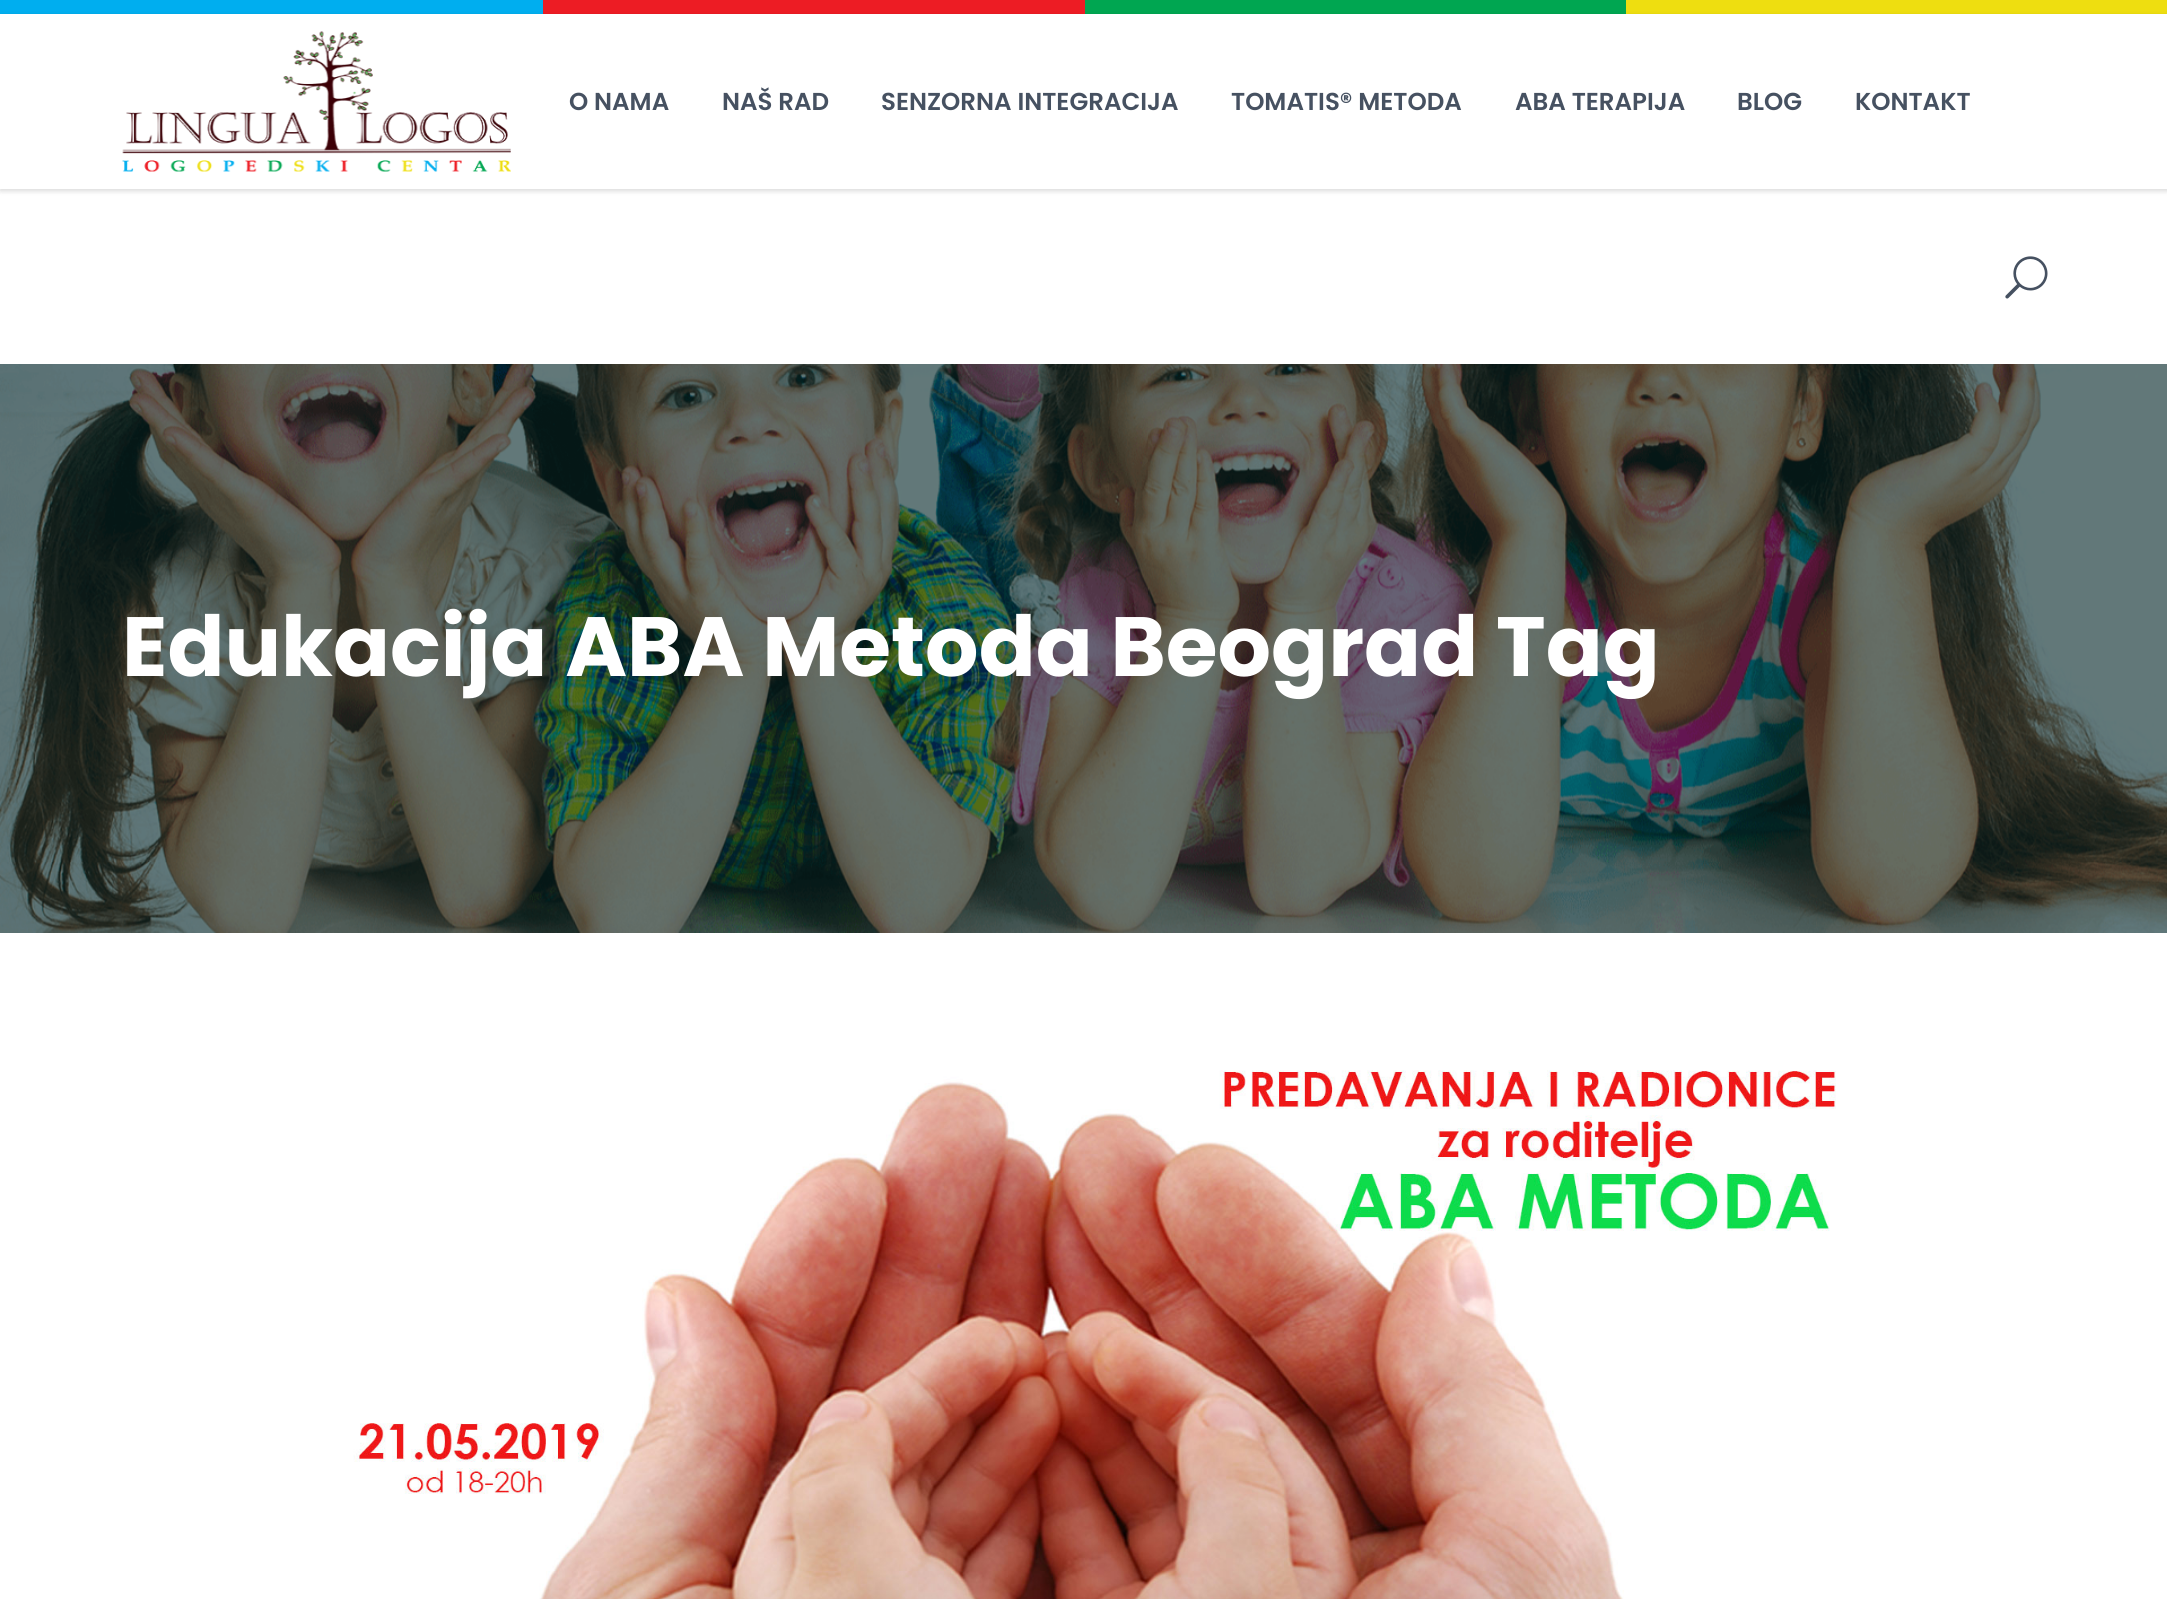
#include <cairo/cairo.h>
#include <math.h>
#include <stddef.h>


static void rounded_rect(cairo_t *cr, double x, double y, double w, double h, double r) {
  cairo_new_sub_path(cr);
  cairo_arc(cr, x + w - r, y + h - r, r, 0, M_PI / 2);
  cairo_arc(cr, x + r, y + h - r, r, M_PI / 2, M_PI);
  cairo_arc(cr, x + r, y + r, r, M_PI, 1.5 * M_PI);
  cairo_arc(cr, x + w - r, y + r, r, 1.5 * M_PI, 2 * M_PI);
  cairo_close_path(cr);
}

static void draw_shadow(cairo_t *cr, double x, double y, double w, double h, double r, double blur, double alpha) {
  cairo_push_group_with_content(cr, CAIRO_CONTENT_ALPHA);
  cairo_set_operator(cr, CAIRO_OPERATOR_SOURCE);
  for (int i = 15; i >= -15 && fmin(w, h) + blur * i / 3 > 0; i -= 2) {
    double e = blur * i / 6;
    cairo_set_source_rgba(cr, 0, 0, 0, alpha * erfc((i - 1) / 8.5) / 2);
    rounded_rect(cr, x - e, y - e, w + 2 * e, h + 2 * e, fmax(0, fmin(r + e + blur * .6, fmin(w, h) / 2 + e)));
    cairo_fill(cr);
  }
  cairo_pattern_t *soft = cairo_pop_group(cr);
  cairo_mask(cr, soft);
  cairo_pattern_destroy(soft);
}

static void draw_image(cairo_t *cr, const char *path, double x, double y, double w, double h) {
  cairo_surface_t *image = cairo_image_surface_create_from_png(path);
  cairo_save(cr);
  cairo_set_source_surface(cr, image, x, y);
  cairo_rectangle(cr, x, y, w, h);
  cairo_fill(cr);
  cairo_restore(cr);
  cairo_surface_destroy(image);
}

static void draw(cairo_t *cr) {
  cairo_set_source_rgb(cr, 1, 1, 1);
  cairo_paint(cr);
  cairo_set_source_rgb(cr, 0, 174 / 255.0, 239 / 255.0);
  cairo_rectangle(cr, 0, 0, 543, 14);
  cairo_fill(cr);
  cairo_set_source_rgb(cr, 237 / 255.0, 28 / 255.0, 36 / 255.0);
  cairo_rectangle(cr, 543, 0, 542, 14);
  cairo_fill(cr);
  cairo_set_source_rgb(cr, 0, 166 / 255.0, 81 / 255.0);
  cairo_rectangle(cr, 1085, 0, 541, 14);
  cairo_fill(cr);
  cairo_set_source_rgb(cr, 238 / 255.0, 222 / 255.0, 16 / 255.0);
  cairo_rectangle(cr, 1626, 0, 541, 14);
  cairo_fill(cr);
  cairo_save(cr);
  cairo_set_fill_rule(cr, CAIRO_FILL_RULE_EVEN_ODD);
  cairo_new_path(cr);
  cairo_move_to(cr, 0, 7);
  cairo_line_to(cr, 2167, 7);
  cairo_line_to(cr, 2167, 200);
  cairo_line_to(cr, 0, 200);
  cairo_close_path(cr);
  cairo_move_to(cr, 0, 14);
  cairo_line_to(cr, 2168, 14);
  cairo_line_to(cr, 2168, 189);
  cairo_line_to(cr, 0, 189);
  cairo_close_path(cr);
  cairo_clip(cr);
  cairo_set_source_rgb(cr, 0, 0, 0);
  draw_shadow(cr, 0, 16, 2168, 175, 0, 2.5, 0.15);
  cairo_restore(cr);
  draw_image(cr, "images/1.png", 122, 31, 389, 141);
  draw_image(cr, "images/2.png", 2005, 256, 43, 43);
  draw_image(cr, "images/3.png", 0, 364, 2167, 569);
  draw_image(cr, "images/4.png", 353, 1070, 1483, 529);
  cairo_select_font_face(cr, "Poppins SemiBold", CAIRO_FONT_SLANT_NORMAL, CAIRO_FONT_WEIGHT_NORMAL);
  cairo_set_font_size(cr, 24.5);
  cairo_set_source_rgb(cr, 70 / 255.0, 81 / 255.0, 97 / 255.0);
  cairo_move_to(cr, 569, 110);
  cairo_show_text(cr, "O NAMA");
  cairo_move_to(cr, 722, 110);
  cairo_show_text(cr, "NAŠ RAD");
  cairo_move_to(cr, 881, 110);
  cairo_show_text(cr, "SENZORNA INTEGRACIJA");
  cairo_move_to(cr, 1231, 110);
  cairo_show_text(cr, "TOMATIS® METODA");
  cairo_move_to(cr, 1515, 110);
  cairo_show_text(cr, "ABA TERAPIJA");
  cairo_move_to(cr, 1737, 110);
  cairo_show_text(cr, "BLOG");
  cairo_move_to(cr, 1855, 110);
  cairo_show_text(cr, "KONTAKT");
  cairo_select_font_face(cr, "Poppins", CAIRO_FONT_SLANT_NORMAL, CAIRO_FONT_WEIGHT_BOLD);
  cairo_set_font_size(cr, 84);
  cairo_set_source_rgb(cr, 1, 1, 1);
  cairo_move_to(cr, 122, 676);
  cairo_show_text(cr, "Edukacija ABA Metoda Beograd Tag");
}

int main(void) {
  cairo_surface_t *surface = cairo_image_surface_create(CAIRO_FORMAT_RGB24, 2167, 1599);
  cairo_t *cr = cairo_create(surface);
  cairo_font_options_t *options = cairo_font_options_create();
  cairo_font_options_set_hint_metrics(options, CAIRO_HINT_METRICS_OFF);
  cairo_font_options_set_hint_style(options, CAIRO_HINT_STYLE_NONE);
  cairo_set_font_options(cr, options);
  cairo_set_miter_limit(cr, 4);
  draw(cr);
  cairo_surface_write_to_png(surface, "out.png");
  cairo_font_options_destroy(options);
  cairo_destroy(cr);
  cairo_surface_destroy(surface);
  return 0;
}
